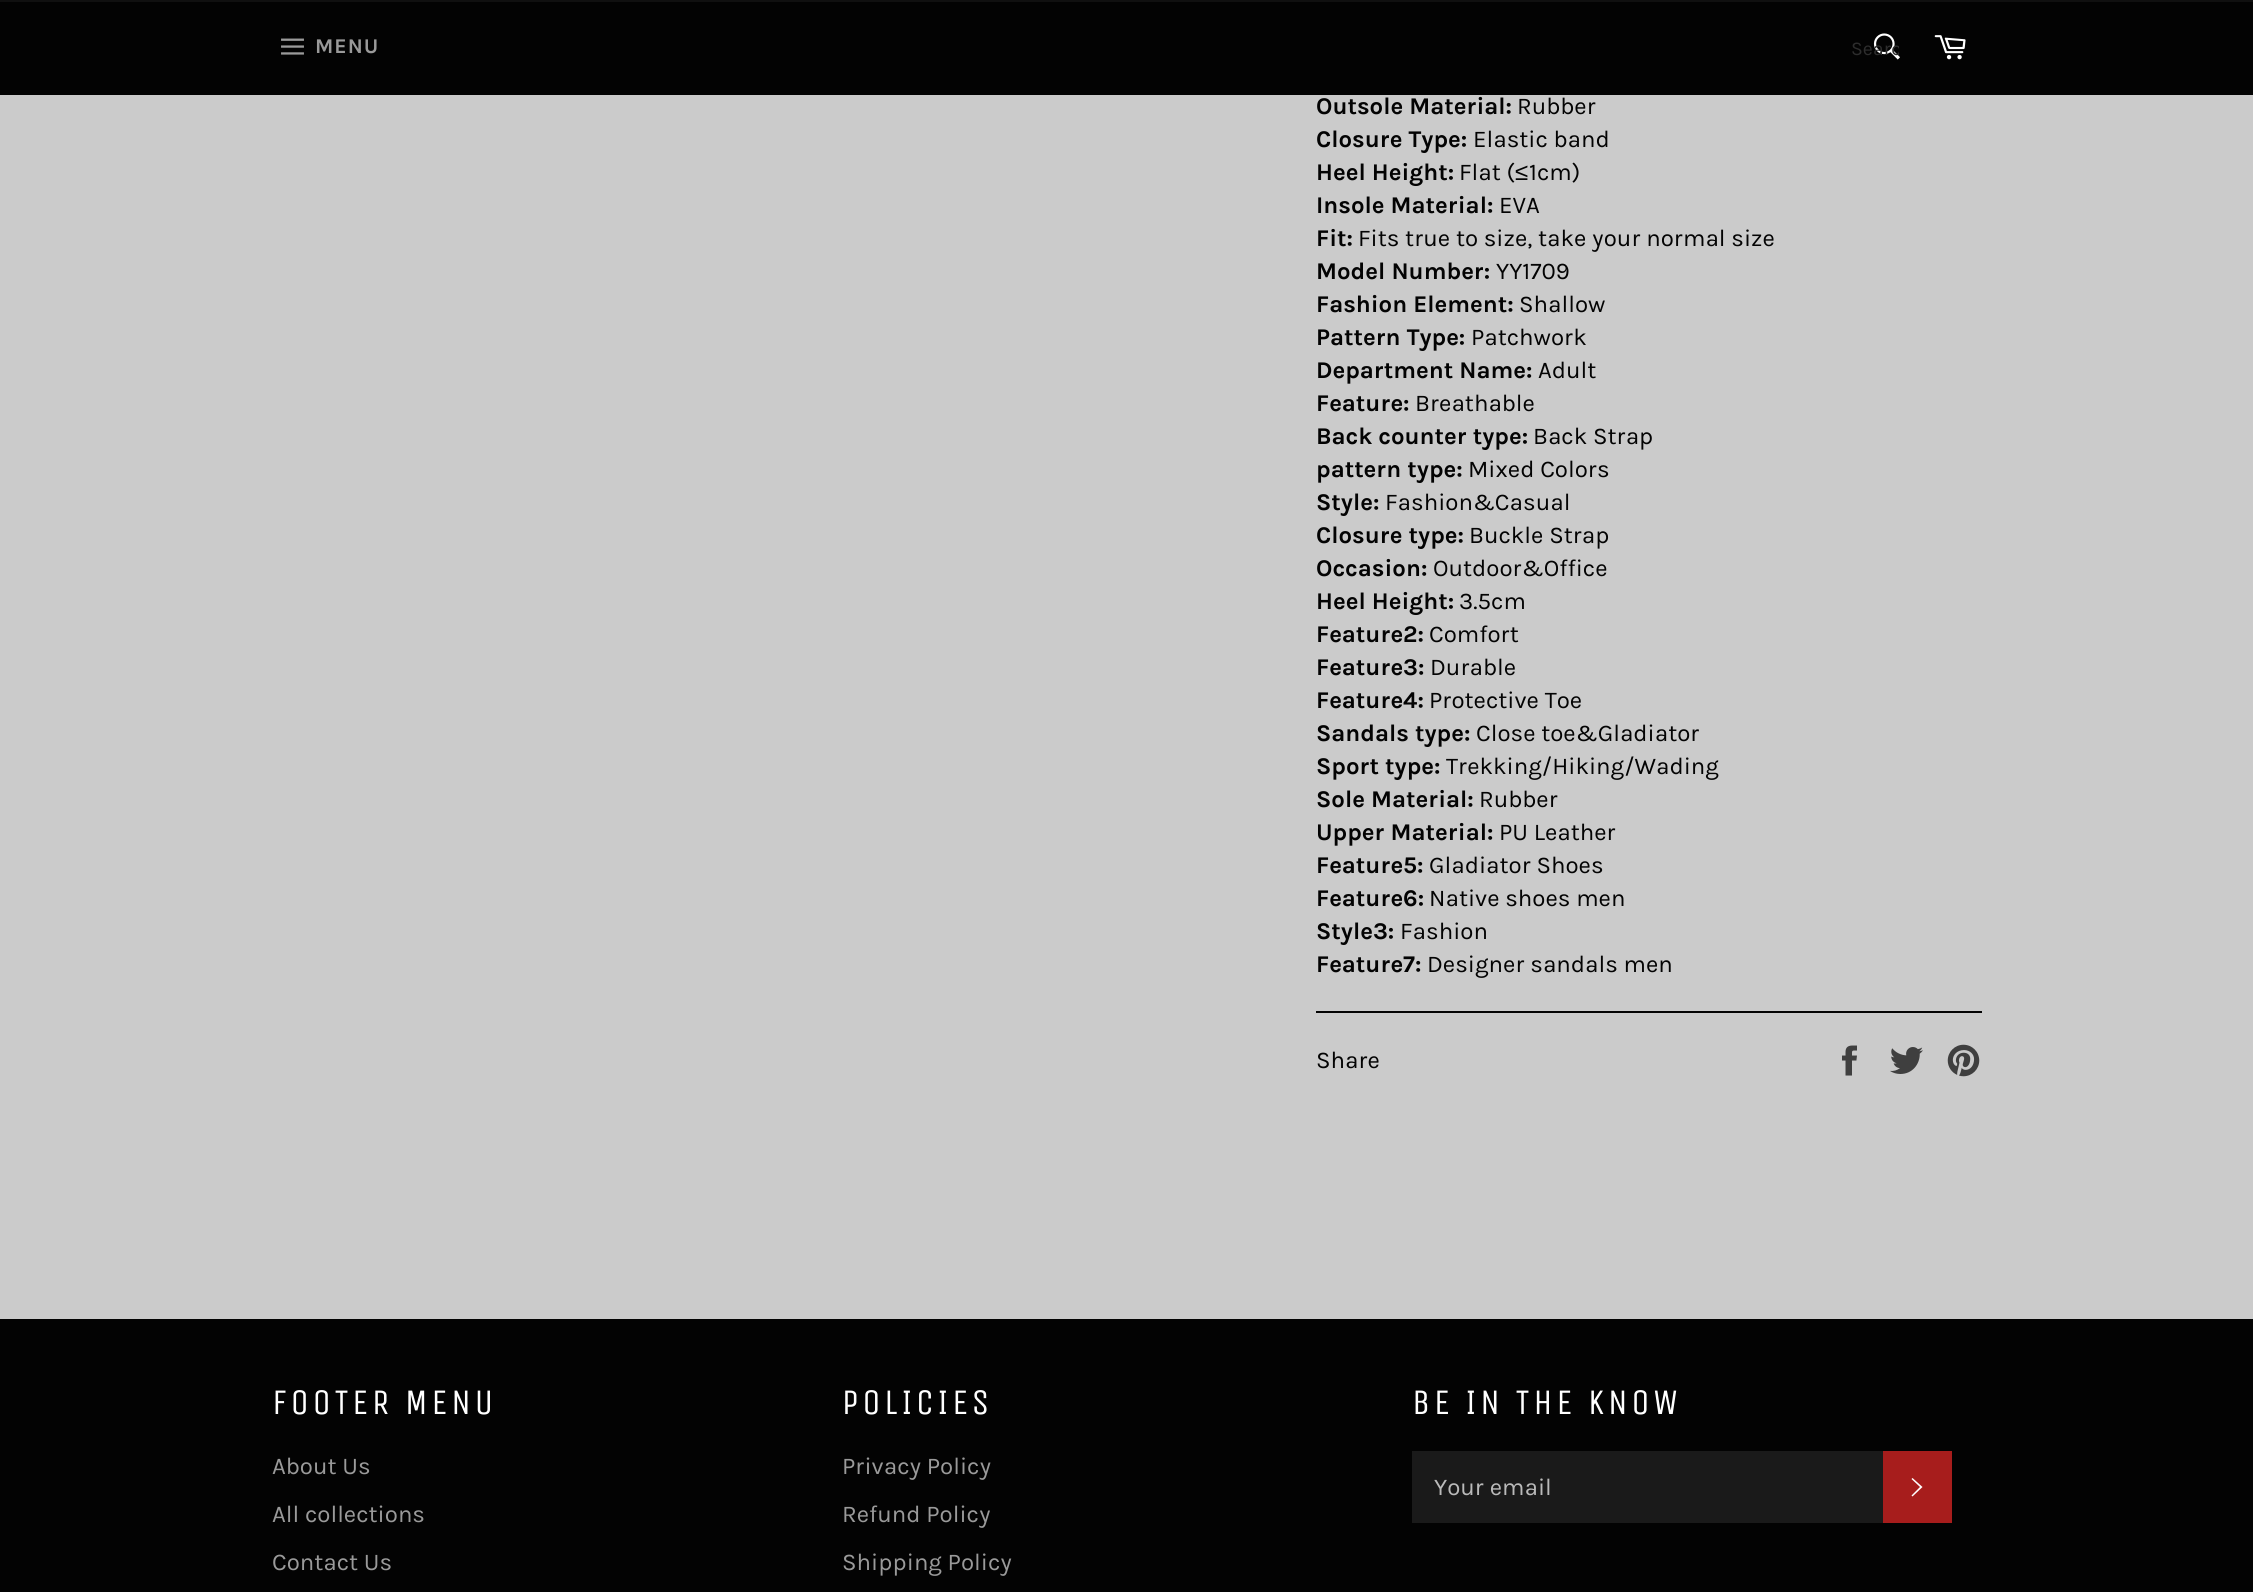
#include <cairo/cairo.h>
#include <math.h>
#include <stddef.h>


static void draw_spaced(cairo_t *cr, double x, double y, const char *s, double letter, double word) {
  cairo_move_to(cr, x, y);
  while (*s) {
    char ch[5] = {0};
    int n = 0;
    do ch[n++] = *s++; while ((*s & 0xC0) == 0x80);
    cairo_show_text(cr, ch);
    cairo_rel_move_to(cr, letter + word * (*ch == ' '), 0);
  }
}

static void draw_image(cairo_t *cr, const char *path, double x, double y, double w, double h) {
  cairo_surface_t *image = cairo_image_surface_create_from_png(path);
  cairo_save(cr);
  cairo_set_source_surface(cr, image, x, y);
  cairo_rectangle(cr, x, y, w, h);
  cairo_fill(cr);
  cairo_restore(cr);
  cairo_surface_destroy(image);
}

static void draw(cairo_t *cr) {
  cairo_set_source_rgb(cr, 203 / 255.0, 203 / 255.0, 203 / 255.0);
  cairo_paint(cr);
  cairo_set_source_rgb(cr, 3 / 255.0, 3 / 255.0, 3 / 255.0);
  cairo_rectangle(cr, 0, 2, 2253, 93);
  cairo_fill(cr);
  cairo_set_source_rgb(cr, 16 / 255.0, 16 / 255.0, 16 / 255.0);
  cairo_rectangle(cr, 0, 0, 2253, 2);
  cairo_fill(cr);
  draw_image(cr, "images/1.png", 281, 38, 23, 17);
  draw_image(cr, "images/2.png", 1873, 33, 27, 27);
  draw_image(cr, "images/3.png", 1934, 35, 32, 25);
  cairo_set_source_rgb(cr, 3 / 255.0, 3 / 255.0, 3 / 255.0);
  cairo_rectangle(cr, 1316, 1011, 666, 2);
  cairo_fill(cr);
  draw_image(cr, "images/4.png", 1842, 1045, 15, 31);
  draw_image(cr, "images/5.png", 1890, 1047, 33, 27);
  draw_image(cr, "images/6.png", 1947, 1044, 33, 33);
  cairo_rectangle(cr, 0, 1319, 2253, 273);
  cairo_fill(cr);
  cairo_set_source_rgb(cr, 26 / 255.0, 26 / 255.0, 26 / 255.0);
  cairo_rectangle(cr, 1412, 1451, 471, 72);
  cairo_fill(cr);
  cairo_set_source_rgb(cr, 167 / 255.0, 29 / 255.0, 28 / 255.0);
  cairo_rectangle(cr, 1883, 1451, 69, 72);
  cairo_fill(cr);
  cairo_set_source_rgb(cr, 1, 1, 1);
  cairo_new_path(cr);
  cairo_move_to(cr, 1911.5, 1479);
  cairo_line_to(cr, 1912.5, 1478);
  cairo_line_to(cr, 1922.5, 1487);
  cairo_line_to(cr, 1912.5, 1496.5);
  cairo_line_to(cr, 1911.5, 1495.5);
  cairo_line_to(cr, 1920, 1487);
  cairo_close_path(cr);
  cairo_fill(cr);
  cairo_select_font_face(cr, "Karla", CAIRO_FONT_SLANT_NORMAL, CAIRO_FONT_WEIGHT_BOLD);
  cairo_set_font_size(cr, 21);
  cairo_set_source_rgb(cr, 154 / 255.0, 154 / 255.0, 154 / 255.0);
  draw_spaced(cr, 315, 53, "MENU", 1, 0);
  cairo_save(cr);
  cairo_rectangle(cr, 1851, 38, 48, 22);
  cairo_clip(cr);
  cairo_select_font_face(cr, "Karla", CAIRO_FONT_SLANT_NORMAL, CAIRO_FONT_WEIGHT_NORMAL);
  cairo_set_font_size(cr, 19.5);
  cairo_set_source_rgb(cr, 45 / 255.0, 45 / 255.0, 45 / 255.0);
  cairo_move_to(cr, 1851, 55);
  cairo_show_text(cr, "Searc");
  cairo_restore(cr);
  cairo_set_font_size(cr, 24);
  cairo_set_source_rgb(cr, 3 / 255.0, 3 / 255.0, 3 / 255.0);
  cairo_move_to(cr, 1316, 114);
  cairo_show_text(cr, "Outsole Material:");
  cairo_select_font_face(cr, "Karla", CAIRO_FONT_SLANT_NORMAL, CAIRO_FONT_WEIGHT_NORMAL);
  cairo_move_to(cr, 1517, 114);
  cairo_show_text(cr, "Rubber");
  cairo_select_font_face(cr, "Karla", CAIRO_FONT_SLANT_NORMAL, CAIRO_FONT_WEIGHT_BOLD);
  cairo_move_to(cr, 1316, 147);
  cairo_show_text(cr, "Closure Type:");
  cairo_select_font_face(cr, "Karla", CAIRO_FONT_SLANT_NORMAL, CAIRO_FONT_WEIGHT_NORMAL);
  cairo_move_to(cr, 1473, 147);
  cairo_show_text(cr, "Elastic band");
  cairo_select_font_face(cr, "Karla", CAIRO_FONT_SLANT_NORMAL, CAIRO_FONT_WEIGHT_BOLD);
  cairo_move_to(cr, 1316, 180);
  cairo_show_text(cr, "Heel Height:");
  cairo_select_font_face(cr, "Karla", CAIRO_FONT_SLANT_NORMAL, CAIRO_FONT_WEIGHT_NORMAL);
  cairo_move_to(cr, 1459, 180);
  cairo_show_text(cr, "Flat (");
  cairo_select_font_face(cr, "Liberation Sans", CAIRO_FONT_SLANT_NORMAL, CAIRO_FONT_WEIGHT_NORMAL);
  cairo_move_to(cr, 1515, 180);
  cairo_show_text(cr, "≤");
  cairo_select_font_face(cr, "Karla", CAIRO_FONT_SLANT_NORMAL, CAIRO_FONT_WEIGHT_NORMAL);
  cairo_move_to(cr, 1529, 180);
  cairo_show_text(cr, "1cm)");
  cairo_select_font_face(cr, "Karla", CAIRO_FONT_SLANT_NORMAL, CAIRO_FONT_WEIGHT_BOLD);
  cairo_move_to(cr, 1316, 213);
  cairo_show_text(cr, "Insole Material:");
  cairo_select_font_face(cr, "Karla", CAIRO_FONT_SLANT_NORMAL, CAIRO_FONT_WEIGHT_NORMAL);
  cairo_move_to(cr, 1499, 213);
  cairo_show_text(cr, "EVA");
  cairo_select_font_face(cr, "Karla", CAIRO_FONT_SLANT_NORMAL, CAIRO_FONT_WEIGHT_BOLD);
  cairo_move_to(cr, 1316, 246);
  cairo_show_text(cr, "Fit:");
  cairo_select_font_face(cr, "Karla", CAIRO_FONT_SLANT_NORMAL, CAIRO_FONT_WEIGHT_NORMAL);
  cairo_move_to(cr, 1358, 246);
  cairo_show_text(cr, "Fits true to size, take your normal size");
  cairo_select_font_face(cr, "Karla", CAIRO_FONT_SLANT_NORMAL, CAIRO_FONT_WEIGHT_BOLD);
  cairo_move_to(cr, 1316, 279);
  cairo_show_text(cr, "Model Number:");
  cairo_select_font_face(cr, "Karla", CAIRO_FONT_SLANT_NORMAL, CAIRO_FONT_WEIGHT_NORMAL);
  cairo_move_to(cr, 1496, 279);
  cairo_show_text(cr, "YY1709");
  cairo_select_font_face(cr, "Karla", CAIRO_FONT_SLANT_NORMAL, CAIRO_FONT_WEIGHT_BOLD);
  cairo_move_to(cr, 1316, 312);
  cairo_show_text(cr, "Fashion Element:");
  cairo_select_font_face(cr, "Karla", CAIRO_FONT_SLANT_NORMAL, CAIRO_FONT_WEIGHT_NORMAL);
  cairo_move_to(cr, 1519, 312);
  cairo_show_text(cr, "Shallow");
  cairo_select_font_face(cr, "Karla", CAIRO_FONT_SLANT_NORMAL, CAIRO_FONT_WEIGHT_BOLD);
  cairo_move_to(cr, 1316, 345);
  cairo_show_text(cr, "Pattern Type:");
  cairo_select_font_face(cr, "Karla", CAIRO_FONT_SLANT_NORMAL, CAIRO_FONT_WEIGHT_NORMAL);
  cairo_move_to(cr, 1471, 345);
  cairo_show_text(cr, "Patchwork");
  cairo_select_font_face(cr, "Karla", CAIRO_FONT_SLANT_NORMAL, CAIRO_FONT_WEIGHT_BOLD);
  cairo_move_to(cr, 1316, 378);
  cairo_show_text(cr, "Department Name:");
  cairo_select_font_face(cr, "Karla", CAIRO_FONT_SLANT_NORMAL, CAIRO_FONT_WEIGHT_NORMAL);
  cairo_move_to(cr, 1538, 378);
  cairo_show_text(cr, "Adult");
  cairo_select_font_face(cr, "Karla", CAIRO_FONT_SLANT_NORMAL, CAIRO_FONT_WEIGHT_BOLD);
  cairo_move_to(cr, 1316, 411);
  cairo_show_text(cr, "Feature:");
  cairo_select_font_face(cr, "Karla", CAIRO_FONT_SLANT_NORMAL, CAIRO_FONT_WEIGHT_NORMAL);
  cairo_move_to(cr, 1415, 411);
  cairo_show_text(cr, "Breathable");
  cairo_select_font_face(cr, "Karla", CAIRO_FONT_SLANT_NORMAL, CAIRO_FONT_WEIGHT_BOLD);
  cairo_move_to(cr, 1316, 444);
  cairo_show_text(cr, "Back counter type:");
  cairo_select_font_face(cr, "Karla", CAIRO_FONT_SLANT_NORMAL, CAIRO_FONT_WEIGHT_NORMAL);
  cairo_move_to(cr, 1533, 444);
  cairo_show_text(cr, "Back Strap");
  cairo_select_font_face(cr, "Karla", CAIRO_FONT_SLANT_NORMAL, CAIRO_FONT_WEIGHT_BOLD);
  cairo_move_to(cr, 1316, 477);
  cairo_show_text(cr, "pattern type:");
  cairo_select_font_face(cr, "Karla", CAIRO_FONT_SLANT_NORMAL, CAIRO_FONT_WEIGHT_NORMAL);
  cairo_move_to(cr, 1468, 477);
  cairo_show_text(cr, "Mixed Colors");
  cairo_select_font_face(cr, "Karla", CAIRO_FONT_SLANT_NORMAL, CAIRO_FONT_WEIGHT_BOLD);
  cairo_move_to(cr, 1316, 510);
  cairo_show_text(cr, "Style:");
  cairo_select_font_face(cr, "Karla", CAIRO_FONT_SLANT_NORMAL, CAIRO_FONT_WEIGHT_NORMAL);
  cairo_move_to(cr, 1385, 510);
  cairo_show_text(cr, "Fashion&Casual");
  cairo_select_font_face(cr, "Karla", CAIRO_FONT_SLANT_NORMAL, CAIRO_FONT_WEIGHT_BOLD);
  cairo_move_to(cr, 1316, 543);
  cairo_show_text(cr, "Closure type:");
  cairo_select_font_face(cr, "Karla", CAIRO_FONT_SLANT_NORMAL, CAIRO_FONT_WEIGHT_NORMAL);
  cairo_move_to(cr, 1469, 543);
  cairo_show_text(cr, "Buckle Strap");
  cairo_select_font_face(cr, "Karla", CAIRO_FONT_SLANT_NORMAL, CAIRO_FONT_WEIGHT_BOLD);
  cairo_move_to(cr, 1316, 576);
  cairo_show_text(cr, "Occasion:");
  cairo_select_font_face(cr, "Karla", CAIRO_FONT_SLANT_NORMAL, CAIRO_FONT_WEIGHT_NORMAL);
  cairo_move_to(cr, 1433, 576);
  cairo_show_text(cr, "Outdoor&Office");
  cairo_select_font_face(cr, "Karla", CAIRO_FONT_SLANT_NORMAL, CAIRO_FONT_WEIGHT_BOLD);
  cairo_move_to(cr, 1316, 609);
  cairo_show_text(cr, "Heel Height:");
  cairo_select_font_face(cr, "Karla", CAIRO_FONT_SLANT_NORMAL, CAIRO_FONT_WEIGHT_NORMAL);
  cairo_move_to(cr, 1459, 609);
  cairo_show_text(cr, "3.5cm");
  cairo_select_font_face(cr, "Karla", CAIRO_FONT_SLANT_NORMAL, CAIRO_FONT_WEIGHT_BOLD);
  cairo_move_to(cr, 1316, 642);
  cairo_show_text(cr, "Feature2:");
  cairo_select_font_face(cr, "Karla", CAIRO_FONT_SLANT_NORMAL, CAIRO_FONT_WEIGHT_NORMAL);
  cairo_move_to(cr, 1429, 642);
  cairo_show_text(cr, "Comfort");
  cairo_select_font_face(cr, "Karla", CAIRO_FONT_SLANT_NORMAL, CAIRO_FONT_WEIGHT_BOLD);
  cairo_move_to(cr, 1316, 675);
  cairo_show_text(cr, "Feature3:");
  cairo_select_font_face(cr, "Karla", CAIRO_FONT_SLANT_NORMAL, CAIRO_FONT_WEIGHT_NORMAL);
  cairo_move_to(cr, 1430, 675);
  cairo_show_text(cr, "Durable");
  cairo_select_font_face(cr, "Karla", CAIRO_FONT_SLANT_NORMAL, CAIRO_FONT_WEIGHT_BOLD);
  cairo_move_to(cr, 1316, 708);
  cairo_show_text(cr, "Feature4:");
  cairo_select_font_face(cr, "Karla", CAIRO_FONT_SLANT_NORMAL, CAIRO_FONT_WEIGHT_NORMAL);
  cairo_move_to(cr, 1429, 708);
  cairo_show_text(cr, "Protective Toe");
  cairo_select_font_face(cr, "Karla", CAIRO_FONT_SLANT_NORMAL, CAIRO_FONT_WEIGHT_BOLD);
  cairo_move_to(cr, 1316, 741);
  cairo_show_text(cr, "Sandals type:");
  cairo_select_font_face(cr, "Karla", CAIRO_FONT_SLANT_NORMAL, CAIRO_FONT_WEIGHT_NORMAL);
  cairo_move_to(cr, 1476, 741);
  cairo_show_text(cr, "Close toe&Gladiator");
  cairo_select_font_face(cr, "Karla", CAIRO_FONT_SLANT_NORMAL, CAIRO_FONT_WEIGHT_BOLD);
  cairo_move_to(cr, 1316, 774);
  cairo_show_text(cr, "Sport type:");
  cairo_select_font_face(cr, "Karla", CAIRO_FONT_SLANT_NORMAL, CAIRO_FONT_WEIGHT_NORMAL);
  cairo_move_to(cr, 1446, 774);
  cairo_show_text(cr, "Trekking/Hiking/Wading");
  cairo_select_font_face(cr, "Karla", CAIRO_FONT_SLANT_NORMAL, CAIRO_FONT_WEIGHT_BOLD);
  cairo_move_to(cr, 1316, 807);
  cairo_show_text(cr, "Sole Material:");
  cairo_select_font_face(cr, "Karla", CAIRO_FONT_SLANT_NORMAL, CAIRO_FONT_WEIGHT_NORMAL);
  cairo_move_to(cr, 1479, 807);
  cairo_show_text(cr, "Rubber");
  cairo_select_font_face(cr, "Karla", CAIRO_FONT_SLANT_NORMAL, CAIRO_FONT_WEIGHT_BOLD);
  cairo_move_to(cr, 1316, 840);
  cairo_show_text(cr, "Upper Material:");
  cairo_select_font_face(cr, "Karla", CAIRO_FONT_SLANT_NORMAL, CAIRO_FONT_WEIGHT_NORMAL);
  cairo_move_to(cr, 1499, 840);
  cairo_show_text(cr, "PU Leather");
  cairo_select_font_face(cr, "Karla", CAIRO_FONT_SLANT_NORMAL, CAIRO_FONT_WEIGHT_BOLD);
  cairo_move_to(cr, 1316, 873);
  cairo_show_text(cr, "Feature5:");
  cairo_select_font_face(cr, "Karla", CAIRO_FONT_SLANT_NORMAL, CAIRO_FONT_WEIGHT_NORMAL);
  cairo_move_to(cr, 1429, 873);
  cairo_show_text(cr, "Gladiator Shoes");
  cairo_select_font_face(cr, "Karla", CAIRO_FONT_SLANT_NORMAL, CAIRO_FONT_WEIGHT_BOLD);
  cairo_move_to(cr, 1316, 906);
  cairo_show_text(cr, "Feature6:");
  cairo_select_font_face(cr, "Karla", CAIRO_FONT_SLANT_NORMAL, CAIRO_FONT_WEIGHT_NORMAL);
  cairo_move_to(cr, 1429, 906);
  cairo_show_text(cr, "Native shoes men");
  cairo_select_font_face(cr, "Karla", CAIRO_FONT_SLANT_NORMAL, CAIRO_FONT_WEIGHT_BOLD);
  cairo_move_to(cr, 1316, 939);
  cairo_show_text(cr, "Style3:");
  cairo_select_font_face(cr, "Karla", CAIRO_FONT_SLANT_NORMAL, CAIRO_FONT_WEIGHT_NORMAL);
  cairo_move_to(cr, 1400, 939);
  cairo_show_text(cr, "Fashion");
  cairo_select_font_face(cr, "Karla", CAIRO_FONT_SLANT_NORMAL, CAIRO_FONT_WEIGHT_BOLD);
  cairo_move_to(cr, 1316, 972);
  cairo_show_text(cr, "Feature7:");
  cairo_select_font_face(cr, "Karla", CAIRO_FONT_SLANT_NORMAL, CAIRO_FONT_WEIGHT_NORMAL);
  cairo_move_to(cr, 1427, 972);
  cairo_show_text(cr, "Designer sandals men");
  cairo_move_to(cr, 1316, 1068);
  cairo_show_text(cr, "Share");
  cairo_select_font_face(cr, "Unica One", CAIRO_FONT_SLANT_NORMAL, CAIRO_FONT_WEIGHT_NORMAL);
  cairo_set_font_size(cr, 36);
  cairo_set_source_rgb(cr, 1, 1, 1);
  draw_spaced(cr, 272, 1414, "FOOTER MENU", 3.6, 0);
  cairo_select_font_face(cr, "Karla", CAIRO_FONT_SLANT_NORMAL, CAIRO_FONT_WEIGHT_NORMAL);
  cairo_set_font_size(cr, 24);
  cairo_set_source_rgb(cr, 154 / 255.0, 154 / 255.0, 154 / 255.0);
  cairo_move_to(cr, 272, 1474);
  cairo_show_text(cr, "About Us");
  cairo_move_to(cr, 272, 1522);
  cairo_show_text(cr, "All collections");
  cairo_move_to(cr, 272, 1570);
  cairo_show_text(cr, "Contact Us");
  cairo_select_font_face(cr, "Unica One", CAIRO_FONT_SLANT_NORMAL, CAIRO_FONT_WEIGHT_NORMAL);
  cairo_set_font_size(cr, 36);
  cairo_set_source_rgb(cr, 1, 1, 1);
  draw_spaced(cr, 842, 1414, "POLICIES", 3.6, 0);
  cairo_select_font_face(cr, "Karla", CAIRO_FONT_SLANT_NORMAL, CAIRO_FONT_WEIGHT_NORMAL);
  cairo_set_font_size(cr, 24);
  cairo_set_source_rgb(cr, 154 / 255.0, 154 / 255.0, 154 / 255.0);
  cairo_move_to(cr, 842, 1474);
  cairo_show_text(cr, "Privacy Policy");
  cairo_move_to(cr, 842, 1522);
  cairo_show_text(cr, "Refund Policy");
  cairo_move_to(cr, 842, 1570);
  cairo_show_text(cr, "Shipping Policy");
  cairo_select_font_face(cr, "Unica One", CAIRO_FONT_SLANT_NORMAL, CAIRO_FONT_WEIGHT_NORMAL);
  cairo_set_font_size(cr, 36);
  cairo_set_source_rgb(cr, 1, 1, 1);
  draw_spaced(cr, 1412, 1414, "BE IN THE KNOW", 3.6, 0);
  cairo_select_font_face(cr, "Karla", CAIRO_FONT_SLANT_NORMAL, CAIRO_FONT_WEIGHT_NORMAL);
  cairo_set_font_size(cr, 24);
  cairo_set_source_rgb(cr, 186 / 255.0, 186 / 255.0, 186 / 255.0);
  cairo_move_to(cr, 1434, 1495);
  cairo_show_text(cr, "Your email");
}

int main(void) {
  cairo_surface_t *surface = cairo_image_surface_create(CAIRO_FORMAT_RGB24, 2253, 1592);
  cairo_t *cr = cairo_create(surface);
  cairo_font_options_t *options = cairo_font_options_create();
  cairo_font_options_set_hint_metrics(options, CAIRO_HINT_METRICS_OFF);
  cairo_font_options_set_hint_style(options, CAIRO_HINT_STYLE_NONE);
  cairo_set_font_options(cr, options);
  cairo_set_miter_limit(cr, 4);
  draw(cr);
  cairo_surface_write_to_png(surface, "out.png");
  cairo_font_options_destroy(options);
  cairo_destroy(cr);
  cairo_surface_destroy(surface);
  return 0;
}
